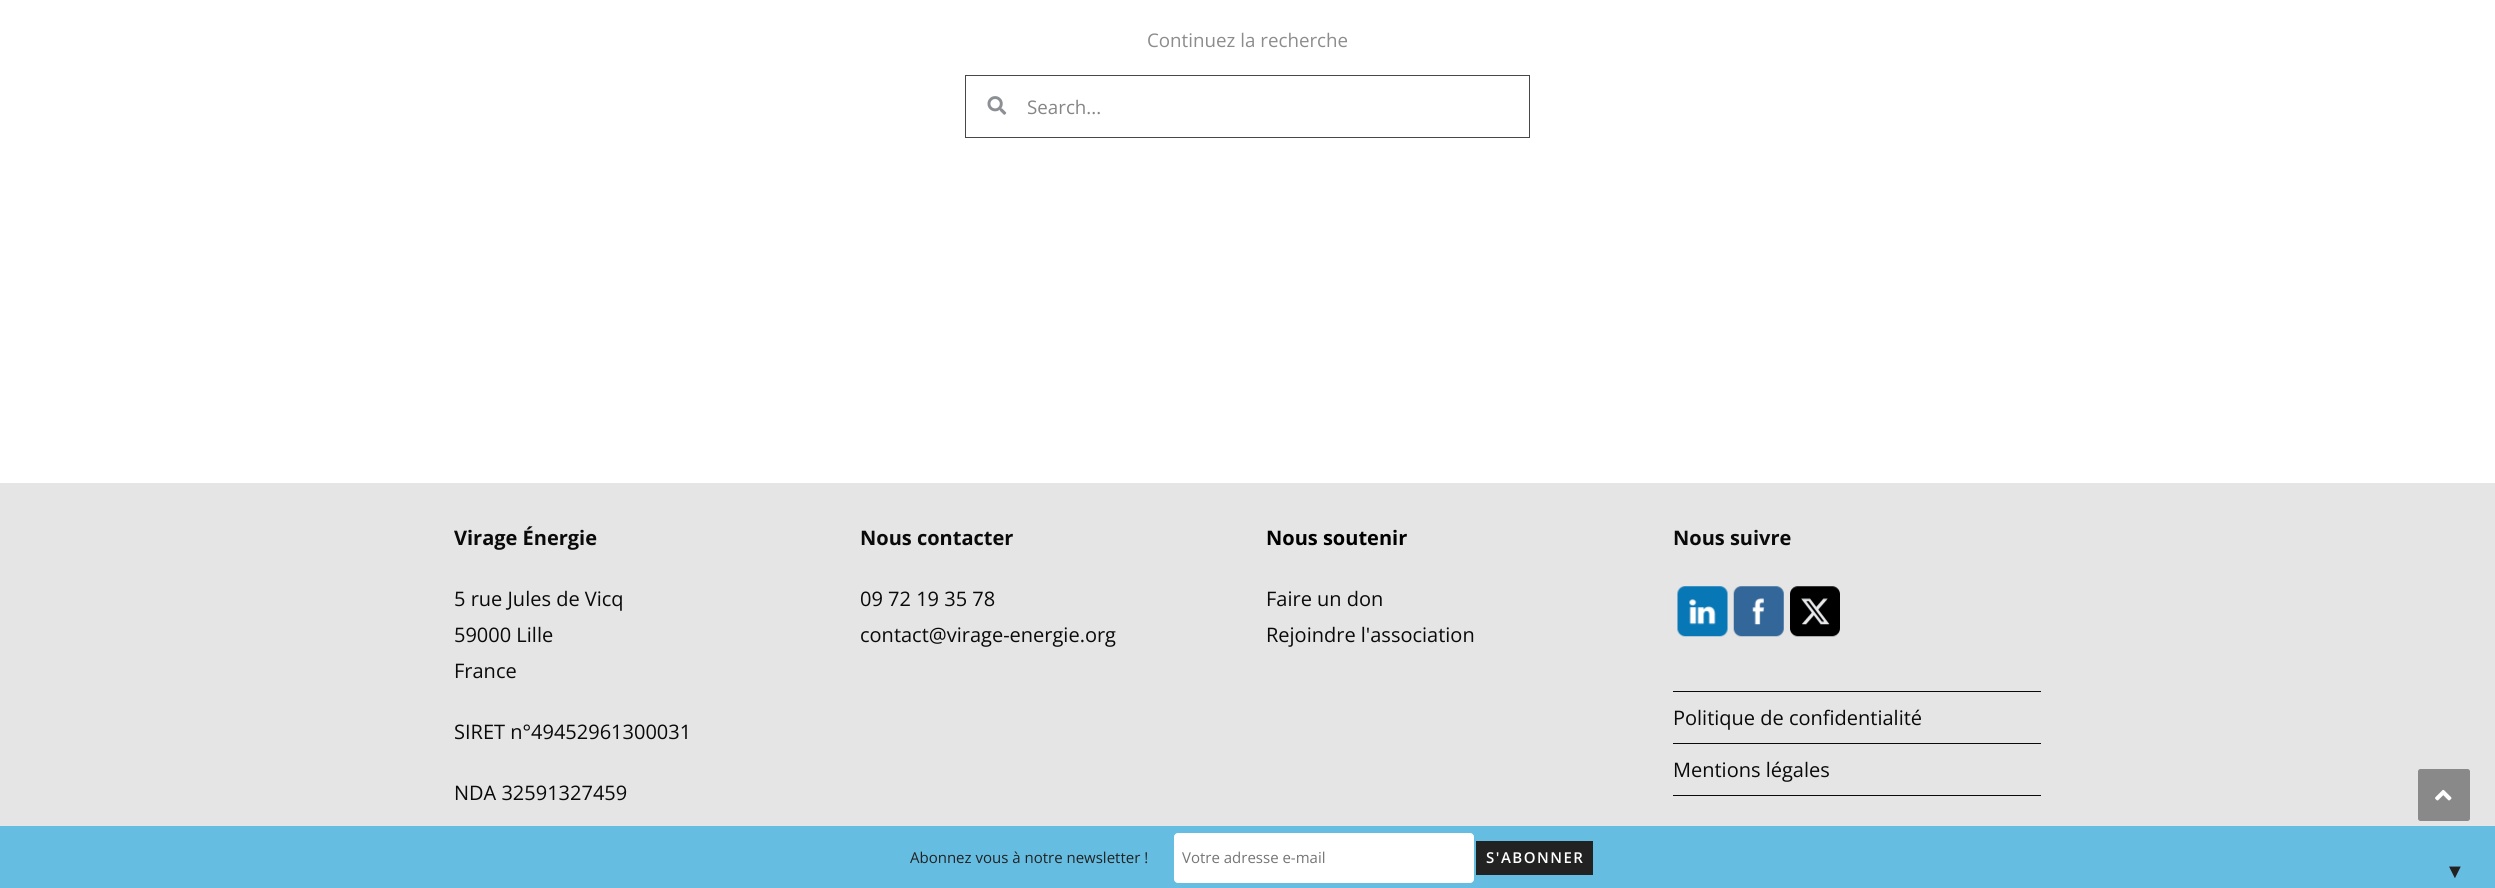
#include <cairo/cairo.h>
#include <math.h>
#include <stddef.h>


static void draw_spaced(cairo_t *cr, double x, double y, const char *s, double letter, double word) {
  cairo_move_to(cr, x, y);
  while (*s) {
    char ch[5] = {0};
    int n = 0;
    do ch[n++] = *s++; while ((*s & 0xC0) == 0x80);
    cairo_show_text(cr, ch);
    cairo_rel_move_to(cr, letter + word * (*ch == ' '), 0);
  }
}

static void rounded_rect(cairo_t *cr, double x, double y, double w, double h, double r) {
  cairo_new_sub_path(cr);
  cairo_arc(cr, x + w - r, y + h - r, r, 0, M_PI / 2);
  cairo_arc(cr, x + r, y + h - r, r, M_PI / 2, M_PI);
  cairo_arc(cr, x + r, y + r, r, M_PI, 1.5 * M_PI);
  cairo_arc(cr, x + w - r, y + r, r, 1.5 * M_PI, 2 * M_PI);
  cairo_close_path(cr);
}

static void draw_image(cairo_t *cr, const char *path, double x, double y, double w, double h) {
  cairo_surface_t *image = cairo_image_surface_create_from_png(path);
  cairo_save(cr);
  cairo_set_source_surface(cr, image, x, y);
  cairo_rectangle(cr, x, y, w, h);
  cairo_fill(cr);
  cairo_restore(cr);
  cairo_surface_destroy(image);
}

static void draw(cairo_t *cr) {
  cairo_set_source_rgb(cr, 1, 1, 1);
  cairo_paint(cr);
  cairo_rectangle(cr, 965.5, 75.5, 564, 62);
  cairo_set_source_rgb(cr, 71 / 255.0, 71 / 255.0, 71 / 255.0);
  cairo_set_line_width(cr, 1);
  cairo_stroke(cr);
  draw_image(cr, "images/1.png", 987, 96, 20, 19);
  cairo_set_source_rgb(cr, 229 / 255.0, 229 / 255.0, 229 / 255.0);
  cairo_rectangle(cr, 0, 483, 2495, 343);
  cairo_fill(cr);
  draw_image(cr, "images/2.png", 1677, 586, 51, 51);
  draw_image(cr, "images/3.png", 1733, 586, 51, 51);
  draw_image(cr, "images/4.png", 1790, 586, 50, 51);
  cairo_set_source_rgb(cr, 10 / 255.0, 10 / 255.0, 10 / 255.0);
  cairo_rectangle(cr, 1673, 691, 368, 1);
  cairo_fill(cr);
  cairo_rectangle(cr, 1673, 743, 368, 1);
  cairo_fill(cr);
  cairo_rectangle(cr, 1673, 795, 368, 1);
  cairo_fill(cr);
  cairo_set_source_rgb(cr, 137 / 255.0, 137 / 255.0, 137 / 255.0);
  rounded_rect(cr, 2418, 769, 52, 52, 2.5);
  cairo_fill(cr);
  draw_image(cr, "images/5.png", 2435, 789, 17, 12);
  cairo_set_source_rgb(cr, 102 / 255.0, 189 / 255.0, 226 / 255.0);
  cairo_rectangle(cr, 0, 826, 2495, 62);
  cairo_fill(cr);
  cairo_set_source_rgb(cr, 1, 1, 1);
  rounded_rect(cr, 1174.5, 833.5, 299, 49, 3.5);
  cairo_fill_preserve(cr);
  cairo_stroke(cr);
  cairo_set_source_rgb(cr, 34 / 255.0, 34 / 255.0, 34 / 255.0);
  cairo_rectangle(cr, 1476, 841, 117, 34);
  cairo_fill(cr);
  cairo_select_font_face(cr, "Open Sans", CAIRO_FONT_SLANT_NORMAL, CAIRO_FONT_WEIGHT_NORMAL);
  cairo_set_font_size(cr, 18.75);
  cairo_set_source_rgb(cr, 140 / 255.0, 140 / 255.0, 140 / 255.0);
  cairo_move_to(cr, 1147, 47);
  cairo_show_text(cr, "Continuez la recherche");
  cairo_set_source_rgb(cr, 133 / 255.0, 133 / 255.0, 133 / 255.0);
  cairo_move_to(cr, 1027, 114);
  cairo_show_text(cr, "Search...");
  cairo_select_font_face(cr, "Open Sans", CAIRO_FONT_SLANT_NORMAL, CAIRO_FONT_WEIGHT_BOLD);
  cairo_set_font_size(cr, 20);
  cairo_set_source_rgb(cr, 10 / 255.0, 10 / 255.0, 10 / 255.0);
  cairo_move_to(cr, 454, 545);
  cairo_show_text(cr, "Virage Énergie");
  cairo_select_font_face(cr, "Open Sans", CAIRO_FONT_SLANT_NORMAL, CAIRO_FONT_WEIGHT_NORMAL);
  cairo_move_to(cr, 454, 606);
  cairo_show_text(cr, "5 rue Jules de Vicq");
  cairo_move_to(cr, 454, 642);
  cairo_show_text(cr, "59000 Lille");
  cairo_move_to(cr, 454, 678);
  cairo_show_text(cr, "France");
  cairo_move_to(cr, 454, 739);
  cairo_show_text(cr, "SIRET n°49452961300031");
  cairo_move_to(cr, 454, 800);
  cairo_show_text(cr, "NDA 32591327459");
  cairo_select_font_face(cr, "Open Sans", CAIRO_FONT_SLANT_NORMAL, CAIRO_FONT_WEIGHT_BOLD);
  cairo_move_to(cr, 860, 545);
  cairo_show_text(cr, "Nous contacter");
  cairo_select_font_face(cr, "Open Sans", CAIRO_FONT_SLANT_NORMAL, CAIRO_FONT_WEIGHT_NORMAL);
  cairo_move_to(cr, 860, 606);
  cairo_show_text(cr, "09 72 19 35 78");
  cairo_move_to(cr, 860, 642);
  cairo_show_text(cr, "contact@virage-energie.org");
  cairo_select_font_face(cr, "Open Sans", CAIRO_FONT_SLANT_NORMAL, CAIRO_FONT_WEIGHT_BOLD);
  cairo_set_source_rgb(cr, 0, 0, 0);
  cairo_move_to(cr, 1266, 545);
  cairo_show_text(cr, "Nous soutenir");
  cairo_select_font_face(cr, "Open Sans", CAIRO_FONT_SLANT_NORMAL, CAIRO_FONT_WEIGHT_NORMAL);
  cairo_set_source_rgb(cr, 10 / 255.0, 10 / 255.0, 10 / 255.0);
  cairo_move_to(cr, 1266, 606);
  cairo_show_text(cr, "Faire un don");
  cairo_move_to(cr, 1266, 642);
  cairo_show_text(cr, "Rejoindre l'association");
  cairo_select_font_face(cr, "Open Sans", CAIRO_FONT_SLANT_NORMAL, CAIRO_FONT_WEIGHT_BOLD);
  cairo_move_to(cr, 1673, 545);
  cairo_show_text(cr, "Nous suivre");
  cairo_select_font_face(cr, "Open Sans", CAIRO_FONT_SLANT_NORMAL, CAIRO_FONT_WEIGHT_NORMAL);
  cairo_move_to(cr, 1673, 725);
  cairo_show_text(cr, "Politique de confidentialité");
  cairo_move_to(cr, 1673, 777);
  cairo_show_text(cr, "Mentions légales");
  cairo_set_font_size(cr, 15);
  cairo_set_source_rgb(cr, 34 / 255.0, 34 / 255.0, 34 / 255.0);
  cairo_move_to(cr, 910, 863);
  cairo_show_text(cr, "Abonnez vous à notre newsletter !");
  cairo_set_source_rgb(cr, 117 / 255.0, 117 / 255.0, 117 / 255.0);
  cairo_move_to(cr, 1182, 863);
  cairo_show_text(cr, "Votre adresse e-mail");
  cairo_select_font_face(cr, "Open Sans SemiBold", CAIRO_FONT_SLANT_NORMAL, CAIRO_FONT_WEIGHT_NORMAL);
  cairo_set_source_rgb(cr, 1, 1, 1);
  draw_spaced(cr, 1486, 863, "S'ABONNER", 1.5, 0);
  cairo_select_font_face(cr, "Liberation Sans", CAIRO_FONT_SLANT_NORMAL, CAIRO_FONT_WEIGHT_NORMAL);
  cairo_set_font_size(cr, 20);
  cairo_set_source_rgb(cr, 34 / 255.0, 34 / 255.0, 34 / 255.0);
  cairo_move_to(cr, 2445, 878);
  cairo_show_text(cr, "▼");
}

int main(void) {
  cairo_surface_t *surface = cairo_image_surface_create(CAIRO_FORMAT_RGB24, 2495, 888);
  cairo_t *cr = cairo_create(surface);
  cairo_font_options_t *options = cairo_font_options_create();
  cairo_font_options_set_hint_metrics(options, CAIRO_HINT_METRICS_OFF);
  cairo_font_options_set_hint_style(options, CAIRO_HINT_STYLE_NONE);
  cairo_set_font_options(cr, options);
  cairo_set_miter_limit(cr, 4);
  draw(cr);
  cairo_surface_write_to_png(surface, "out.png");
  cairo_font_options_destroy(options);
  cairo_destroy(cr);
  cairo_surface_destroy(surface);
  return 0;
}
